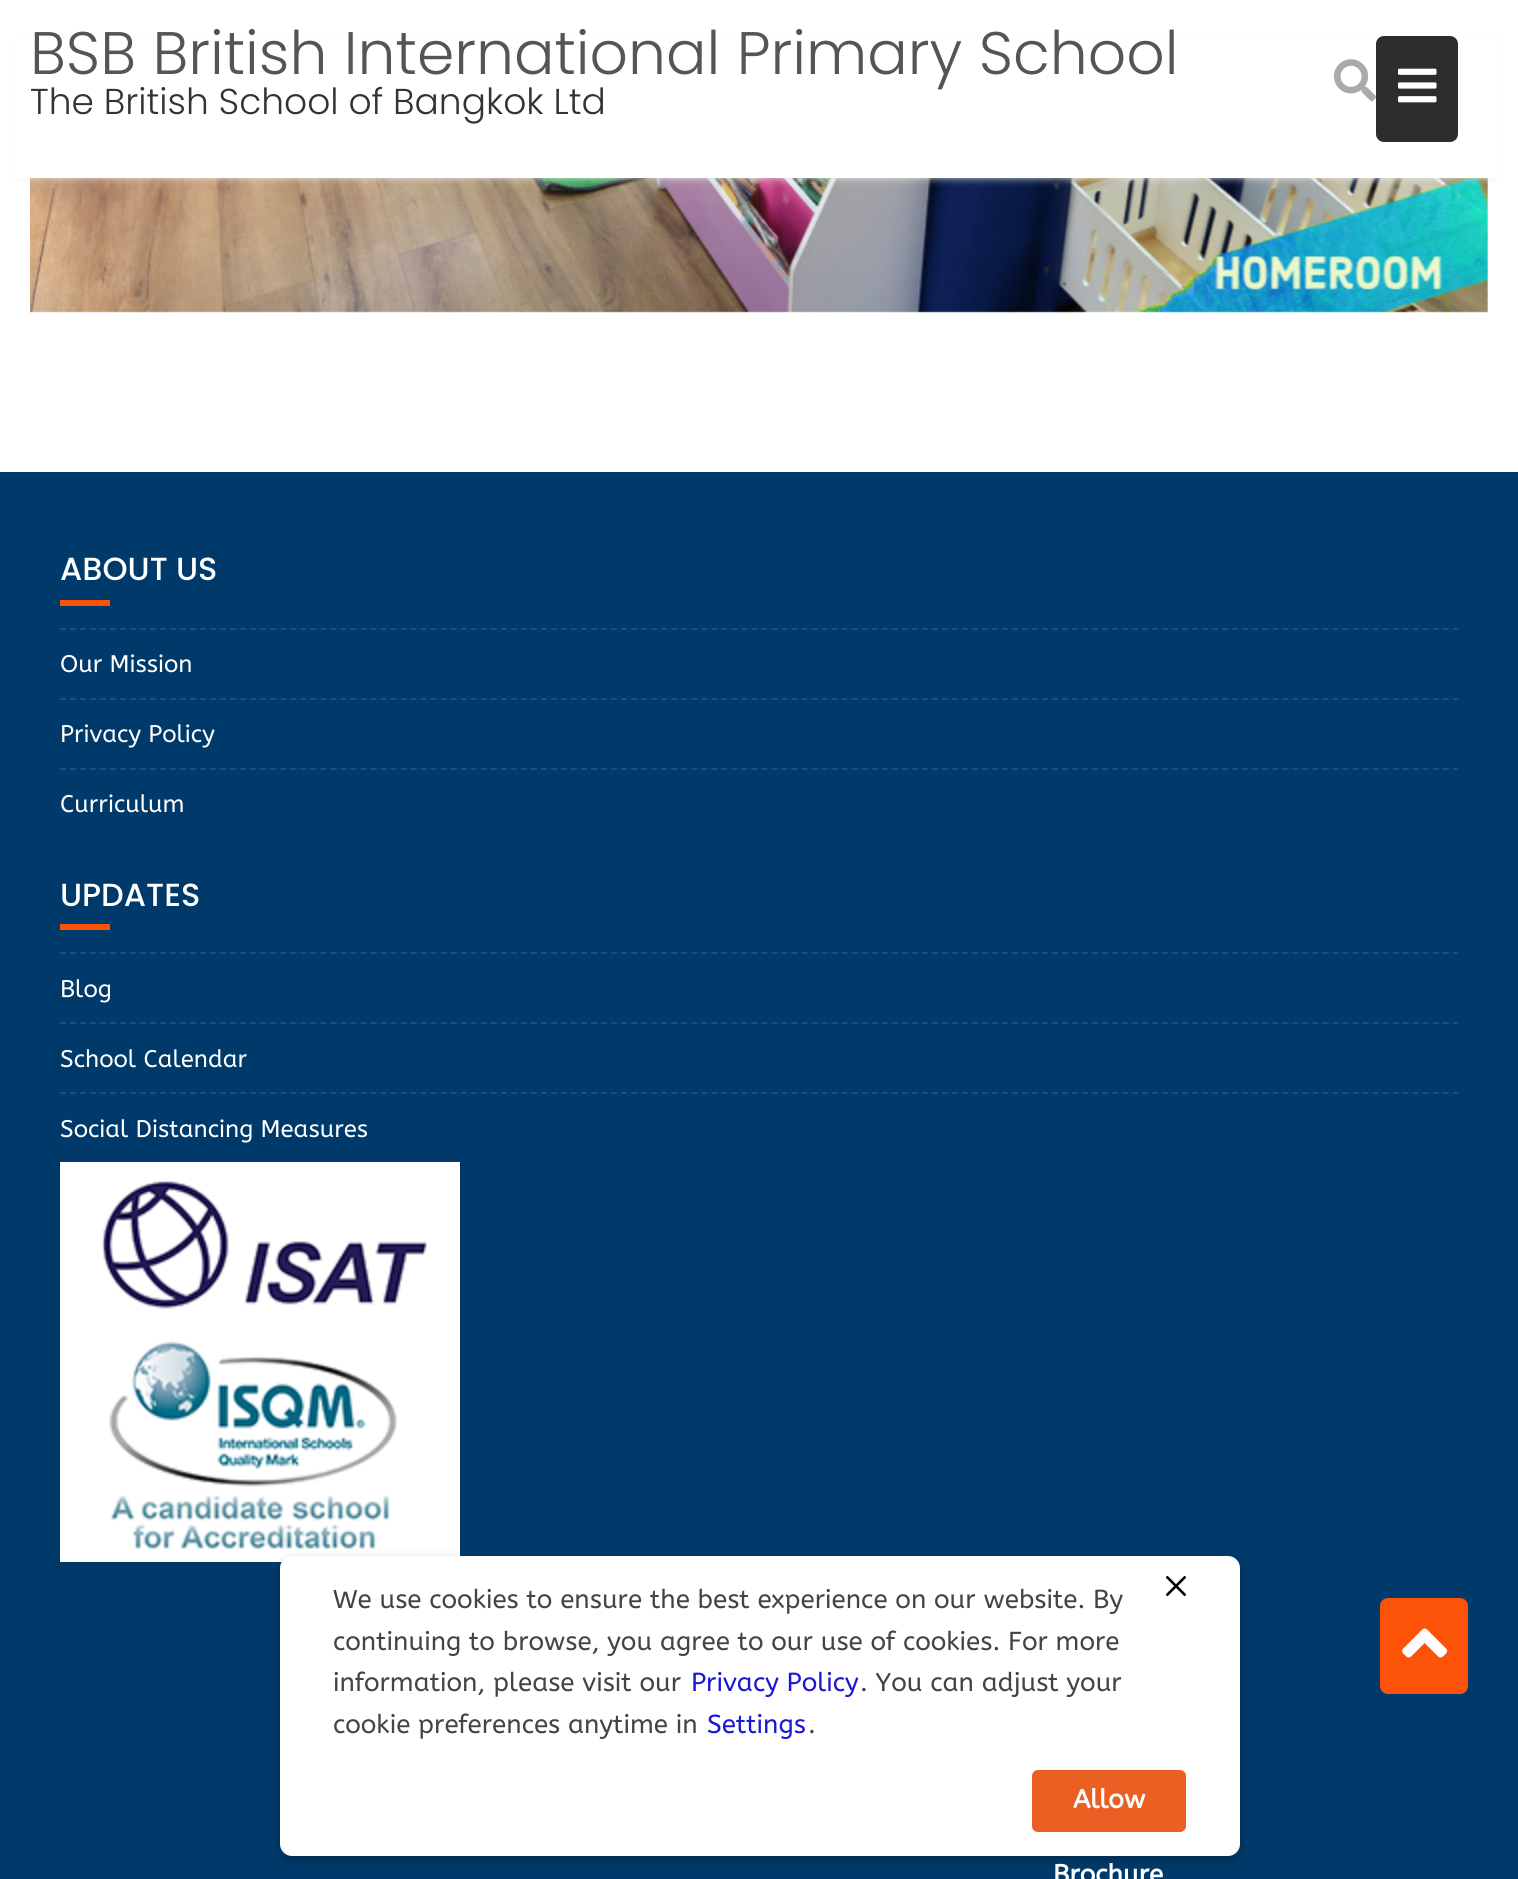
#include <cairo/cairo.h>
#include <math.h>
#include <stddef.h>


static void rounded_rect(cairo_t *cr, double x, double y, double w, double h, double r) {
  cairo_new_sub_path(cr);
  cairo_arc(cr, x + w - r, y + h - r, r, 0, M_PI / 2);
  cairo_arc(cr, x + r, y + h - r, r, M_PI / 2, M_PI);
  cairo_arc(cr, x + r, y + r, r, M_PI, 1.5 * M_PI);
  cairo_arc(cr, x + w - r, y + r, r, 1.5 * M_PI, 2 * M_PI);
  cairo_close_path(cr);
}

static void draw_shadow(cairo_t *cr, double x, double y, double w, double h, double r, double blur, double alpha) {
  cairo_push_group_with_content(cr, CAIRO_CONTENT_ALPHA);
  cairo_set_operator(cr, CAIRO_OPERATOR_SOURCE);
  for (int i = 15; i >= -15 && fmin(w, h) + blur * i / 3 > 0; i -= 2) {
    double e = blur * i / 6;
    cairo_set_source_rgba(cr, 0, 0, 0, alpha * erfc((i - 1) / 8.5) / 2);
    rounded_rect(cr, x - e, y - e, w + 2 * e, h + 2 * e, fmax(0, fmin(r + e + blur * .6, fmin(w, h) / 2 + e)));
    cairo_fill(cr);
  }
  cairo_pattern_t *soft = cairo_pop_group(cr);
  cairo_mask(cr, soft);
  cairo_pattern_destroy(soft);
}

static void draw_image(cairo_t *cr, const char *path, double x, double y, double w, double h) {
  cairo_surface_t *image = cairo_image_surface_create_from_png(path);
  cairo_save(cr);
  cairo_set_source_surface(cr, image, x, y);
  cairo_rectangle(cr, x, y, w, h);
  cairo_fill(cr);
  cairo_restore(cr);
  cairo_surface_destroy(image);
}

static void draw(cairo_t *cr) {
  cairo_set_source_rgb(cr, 1, 1, 1);
  cairo_paint(cr);
  draw_image(cr, "images/3.png", 30, 178, 1458, 135);
  cairo_set_source_rgb(cr, 238 / 255.0, 238 / 255.0, 238 / 255.0);
  draw_shadow(cr, 20, 40, 1478, 138, 0, 4, 0.9);
  cairo_set_source_rgb(cr, 1, 1, 1);
  cairo_rectangle(cr, 16, 36, 1486, 142);
  cairo_fill(cr);
  draw_image(cr, "images/1.png", 1334, 59, 42, 43);
  cairo_set_source_rgb(cr, 45 / 255.0, 45 / 255.0, 45 / 255.0);
  rounded_rect(cr, 1376, 36, 82, 106, 8);
  cairo_fill(cr);
  draw_image(cr, "images/2.png", 1398, 68, 39, 35);
  cairo_set_source_rgb(cr, 0, 58 / 255.0, 106 / 255.0);
  cairo_rectangle(cr, 0, 472, 1518, 1407);
  cairo_fill(cr);
  cairo_set_source_rgb(cr, 253 / 255.0, 83 / 255.0, 8 / 255.0);
  cairo_rectangle(cr, 60, 600, 50, 6);
  cairo_fill(cr);
  cairo_new_path(cr);
  cairo_move_to(cr, 60, 629);
  cairo_line_to(cr, 1458, 629);
  cairo_set_source_rgb(cr, 22 / 255.0, 80 / 255.0, 128 / 255.0);
  cairo_set_dash(cr, (double[]){6, 4.02}, 2, 0);
  cairo_stroke(cr);
  cairo_new_path(cr);
  cairo_move_to(cr, 60, 699);
  cairo_line_to(cr, 1458, 699);
  cairo_stroke(cr);
  cairo_new_path(cr);
  cairo_move_to(cr, 60, 769);
  cairo_line_to(cr, 1458, 769);
  cairo_stroke(cr);
  cairo_set_source_rgb(cr, 253 / 255.0, 83 / 255.0, 8 / 255.0);
  cairo_rectangle(cr, 60, 924, 50, 6);
  cairo_fill(cr);
  cairo_new_path(cr);
  cairo_move_to(cr, 60, 953);
  cairo_line_to(cr, 1458, 953);
  cairo_set_source_rgb(cr, 22 / 255.0, 80 / 255.0, 128 / 255.0);
  cairo_stroke(cr);
  cairo_new_path(cr);
  cairo_move_to(cr, 60, 1023);
  cairo_line_to(cr, 1458, 1023);
  cairo_stroke(cr);
  cairo_new_path(cr);
  cairo_move_to(cr, 60, 1093);
  cairo_line_to(cr, 1458, 1093);
  cairo_stroke(cr);
  draw_image(cr, "images/4.png", 60, 1162, 400, 400);
  cairo_set_source_rgb(cr, 253 / 255.0, 83 / 255.0, 8 / 255.0);
  rounded_rect(cr, 1380, 1598, 88, 96, 8);
  cairo_fill(cr);
  draw_image(cr, "images/5.png", 1402, 1628, 46, 30);
  cairo_set_source_rgb(cr, 0, 0, 0);
  draw_shadow(cr, 280, 1560, 960, 300, 12, 5, 0.25);
  cairo_set_source_rgb(cr, 1, 1, 1);
  rounded_rect(cr, 280, 1556, 960, 300, 12);
  cairo_fill(cr);
  draw_image(cr, "images/6.png", 1166, 1576, 20, 20);
  cairo_set_source_rgb(cr, 236 / 255.0, 95 / 255.0, 34 / 255.0);
  rounded_rect(cr, 1032, 1770, 154, 62, 6);
  cairo_fill(cr);
  cairo_select_font_face(cr, "Poppins Light", CAIRO_FONT_SLANT_NORMAL, CAIRO_FONT_WEIGHT_NORMAL);
  cairo_set_font_size(cr, 60);
  cairo_set_source_rgb(cr, 85 / 255.0, 85 / 255.0, 85 / 255.0);
  cairo_move_to(cr, 30, 74);
  cairo_show_text(cr, "BSB British International Primary School");
  cairo_set_font_size(cr, 36);
  cairo_set_source_rgb(cr, 51 / 255.0, 51 / 255.0, 51 / 255.0);
  cairo_move_to(cr, 30, 114);
  cairo_show_text(cr, "The British School of Bangkok Ltd");
  cairo_select_font_face(cr, "Poppins Medium", CAIRO_FONT_SLANT_NORMAL, CAIRO_FONT_WEIGHT_NORMAL);
  cairo_set_font_size(cr, 32);
  cairo_set_source_rgb(cr, 1, 1, 1);
  cairo_move_to(cr, 60, 580);
  cairo_show_text(cr, "ABOUT US");
  cairo_select_font_face(cr, "ABeeZee", CAIRO_FONT_SLANT_NORMAL, CAIRO_FONT_WEIGHT_NORMAL);
  cairo_set_font_size(cr, 24);
  cairo_move_to(cr, 60, 672);
  cairo_show_text(cr, "Our Mission");
  cairo_move_to(cr, 60, 742);
  cairo_show_text(cr, "Privacy Policy");
  cairo_move_to(cr, 60, 812);
  cairo_show_text(cr, "Curriculum");
  cairo_select_font_face(cr, "Poppins Medium", CAIRO_FONT_SLANT_NORMAL, CAIRO_FONT_WEIGHT_NORMAL);
  cairo_set_font_size(cr, 32);
  cairo_move_to(cr, 60, 906);
  cairo_show_text(cr, "UPDATES");
  cairo_select_font_face(cr, "ABeeZee", CAIRO_FONT_SLANT_NORMAL, CAIRO_FONT_WEIGHT_NORMAL);
  cairo_set_font_size(cr, 24);
  cairo_move_to(cr, 60, 997);
  cairo_show_text(cr, "Blog");
  cairo_move_to(cr, 60, 1067);
  cairo_show_text(cr, "School Calendar");
  cairo_move_to(cr, 60, 1137);
  cairo_show_text(cr, "Social Distancing Measures");
  cairo_select_font_face(cr, "ABeeZee", CAIRO_FONT_SLANT_NORMAL, CAIRO_FONT_WEIGHT_BOLD);
  cairo_set_font_size(cr, 26);
  cairo_move_to(cr, 1053, 1883);
  cairo_show_text(cr, "Brochure");
  cairo_select_font_face(cr, "ABeeZee", CAIRO_FONT_SLANT_NORMAL, CAIRO_FONT_WEIGHT_NORMAL);
  cairo_set_source_rgb(cr, 68 / 255.0, 68 / 255.0, 68 / 255.0);
  cairo_move_to(cr, 333, 1608);
  cairo_show_text(cr, "We use cookies to ensure the best experience on our website. By");
  cairo_move_to(cr, 333, 1650);
  cairo_show_text(cr, "continuing to browse, you agree to our use of cookies. For more");
  cairo_move_to(cr, 333, 1691);
  cairo_show_text(cr, "information, please visit our");
  cairo_set_source_rgb(cr, 25 / 255.0, 22 / 255.0, 212 / 255.0);
  cairo_move_to(cr, 691, 1691);
  cairo_show_text(cr, "Privacy Policy");
  cairo_set_source_rgb(cr, 68 / 255.0, 68 / 255.0, 68 / 255.0);
  cairo_move_to(cr, 860, 1691);
  cairo_show_text(cr, ". You can adjust your");
  cairo_move_to(cr, 333, 1733);
  cairo_show_text(cr, "cookie preferences anytime in");
  cairo_set_source_rgb(cr, 25 / 255.0, 22 / 255.0, 212 / 255.0);
  cairo_move_to(cr, 707, 1733);
  cairo_show_text(cr, "Settings");
  cairo_set_source_rgb(cr, 68 / 255.0, 68 / 255.0, 68 / 255.0);
  cairo_move_to(cr, 808, 1733);
  cairo_show_text(cr, ".");
  cairo_select_font_face(cr, "ABeeZee", CAIRO_FONT_SLANT_NORMAL, CAIRO_FONT_WEIGHT_BOLD);
  cairo_set_source_rgb(cr, 1, 1, 1);
  cairo_move_to(cr, 1073, 1808);
  cairo_show_text(cr, "Allow");
}

int main(void) {
  cairo_surface_t *surface = cairo_image_surface_create(CAIRO_FORMAT_RGB24, 1518, 1879);
  cairo_t *cr = cairo_create(surface);
  cairo_font_options_t *options = cairo_font_options_create();
  cairo_font_options_set_hint_metrics(options, CAIRO_HINT_METRICS_OFF);
  cairo_font_options_set_hint_style(options, CAIRO_HINT_STYLE_NONE);
  cairo_set_font_options(cr, options);
  cairo_set_miter_limit(cr, 4);
  draw(cr);
  cairo_surface_write_to_png(surface, "out.png");
  cairo_font_options_destroy(options);
  cairo_destroy(cr);
  cairo_surface_destroy(surface);
  return 0;
}
